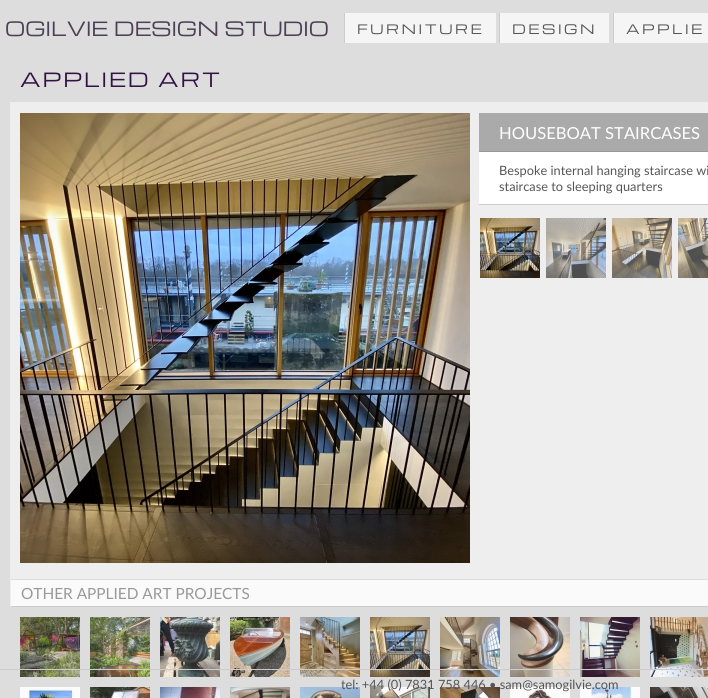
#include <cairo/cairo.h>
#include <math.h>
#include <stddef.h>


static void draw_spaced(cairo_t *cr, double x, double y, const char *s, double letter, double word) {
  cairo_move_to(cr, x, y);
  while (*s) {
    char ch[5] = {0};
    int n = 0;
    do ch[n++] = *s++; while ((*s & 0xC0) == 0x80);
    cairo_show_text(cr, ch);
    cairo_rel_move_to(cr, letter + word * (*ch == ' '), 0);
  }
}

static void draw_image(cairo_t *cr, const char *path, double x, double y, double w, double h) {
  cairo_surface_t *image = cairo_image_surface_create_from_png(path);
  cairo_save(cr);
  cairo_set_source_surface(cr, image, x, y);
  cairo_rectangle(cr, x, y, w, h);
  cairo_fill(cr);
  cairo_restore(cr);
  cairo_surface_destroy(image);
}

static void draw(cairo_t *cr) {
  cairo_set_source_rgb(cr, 221 / 255.0, 221 / 255.0, 221 / 255.0);
  cairo_paint(cr);
  cairo_set_source_rgb(cr, 245 / 255.0, 245 / 255.0, 245 / 255.0);
  cairo_rectangle(cr, 345, 13, 151, 30);
  cairo_fill(cr);
  cairo_set_source_rgb(cr, 204 / 255.0, 204 / 255.0, 204 / 255.0);
  cairo_rectangle(cr, 344, 13, 1, 30);
  cairo_fill(cr);
  cairo_set_source_rgb(cr, 245 / 255.0, 245 / 255.0, 245 / 255.0);
  cairo_rectangle(cr, 500, 13, 109, 30);
  cairo_fill(cr);
  cairo_set_source_rgb(cr, 204 / 255.0, 204 / 255.0, 204 / 255.0);
  cairo_rectangle(cr, 499, 13, 1, 30);
  cairo_fill(cr);
  cairo_set_source_rgb(cr, 245 / 255.0, 245 / 255.0, 245 / 255.0);
  cairo_rectangle(cr, 614, 13, 94, 30);
  cairo_fill(cr);
  cairo_set_source_rgb(cr, 204 / 255.0, 204 / 255.0, 204 / 255.0);
  cairo_rectangle(cr, 613, 13, 1, 30);
  cairo_fill(cr);
  cairo_set_source_rgb(cr, 238 / 255.0, 238 / 255.0, 238 / 255.0);
  cairo_rectangle(cr, 10, 102, 698, 477);
  cairo_fill(cr);
  draw_image(cr, "images/1.png", 20, 113, 450, 450);
  cairo_set_source_rgb(cr, 170 / 255.0, 170 / 255.0, 170 / 255.0);
  cairo_rectangle(cr, 479, 113, 229, 38);
  cairo_fill(cr);
  cairo_set_source_rgb(cr, 153 / 255.0, 153 / 255.0, 153 / 255.0);
  cairo_rectangle(cr, 479, 151, 229, 1);
  cairo_fill(cr);
  cairo_set_source_rgb(cr, 1, 1, 1);
  cairo_rectangle(cr, 479, 152, 229, 52);
  cairo_fill(cr);
  cairo_set_source_rgb(cr, 204 / 255.0, 204 / 255.0, 204 / 255.0);
  cairo_rectangle(cr, 479, 204, 229, 1);
  cairo_fill(cr);
  draw_image(cr, "images/2.png", 480, 218, 60, 60);
  draw_image(cr, "images/3.png", 546, 218, 60, 60);
  draw_image(cr, "images/4.png", 612, 218, 60, 60);
  draw_image(cr, "images/5.png", 678, 218, 30, 60);
  cairo_set_source_rgb(cr, 250 / 255.0, 250 / 255.0, 250 / 255.0);
  cairo_rectangle(cr, 11, 580, 697, 26);
  cairo_fill(cr);
  cairo_set_source_rgb(cr, 204 / 255.0, 204 / 255.0, 204 / 255.0);
  cairo_rectangle(cr, 10, 606, 698, 1);
  cairo_fill(cr);
  cairo_set_source_rgb(cr, 238 / 255.0, 238 / 255.0, 238 / 255.0);
  cairo_rectangle(cr, 10, 579, 1, 28);
  cairo_fill(cr);
  draw_image(cr, "images/6.png", 20, 617, 60, 60);
  draw_image(cr, "images/7.png", 90, 617, 60, 60);
  draw_image(cr, "images/8.png", 160, 617, 60, 60);
  draw_image(cr, "images/9.png", 230, 617, 60, 60);
  draw_image(cr, "images/10.png", 300, 617, 60, 60);
  draw_image(cr, "images/11.png", 370, 617, 60, 60);
  draw_image(cr, "images/12.png", 440, 617, 60, 60);
  draw_image(cr, "images/13.png", 510, 617, 60, 60);
  draw_image(cr, "images/14.png", 580, 617, 60, 60);
  draw_image(cr, "images/15.png", 650, 617, 58, 60);
  draw_image(cr, "images/16.png", 20, 687, 60, 11);
  draw_image(cr, "images/17.png", 90, 687, 60, 11);
  draw_image(cr, "images/18.png", 160, 687, 60, 11);
  draw_image(cr, "images/19.png", 230, 687, 60, 11);
  draw_image(cr, "images/20.png", 300, 687, 60, 11);
  draw_image(cr, "images/21.png", 370, 687, 60, 11);
  draw_image(cr, "images/22.png", 440, 687, 60, 11);
  draw_image(cr, "images/23.png", 510, 687, 60, 11);
  draw_image(cr, "images/24.png", 580, 687, 60, 11);
  draw_image(cr, "images/25.png", 650, 687, 58, 11);
  cairo_set_source_rgb(cr, 204 / 255.0, 204 / 255.0, 204 / 255.0);
  cairo_rectangle(cr, 0, 669, 708, 1);
  cairo_fill(cr);
  cairo_select_font_face(cr, "Michroma", CAIRO_FONT_SLANT_NORMAL, CAIRO_FONT_WEIGHT_NORMAL);
  cairo_set_font_size(cr, 19.25);
  cairo_set_source_rgb(cr, 75 / 255.0, 64 / 255.0, 86 / 255.0);
  cairo_move_to(cr, 5, 36);
  cairo_show_text(cr, "OGILVIE DESIGN STUDIO");
  cairo_set_font_size(cr, 12.8);
  cairo_set_source_rgb(cr, 85 / 255.0, 85 / 255.0, 85 / 255.0);
  draw_spaced(cr, 357, 34, "FURNITURE", 2.5, 0);
  draw_spaced(cr, 512, 34, "DESIGN", 2.5, 0);
  draw_spaced(cr, 626, 34, "APPLIE", 2.5, 0);
  cairo_set_font_size(cr, 19.25);
  cairo_set_source_rgb(cr, 51 / 255.0, 17 / 255.0, 68 / 255.0);
  draw_spaced(cr, 20, 87, "APPLIED ART", 2, 0);
  cairo_select_font_face(cr, "Lato", CAIRO_FONT_SLANT_NORMAL, CAIRO_FONT_WEIGHT_NORMAL);
  cairo_set_font_size(cr, 16.6);
  cairo_set_source_rgb(cr, 1, 1, 1);
  cairo_move_to(cr, 499, 139);
  cairo_show_text(cr, "HOUSEBOAT STAIRCASES");
  cairo_set_font_size(cr, 12.8);
  cairo_set_source_rgb(cr, 85 / 255.0, 85 / 255.0, 85 / 255.0);
  cairo_move_to(cr, 499, 175);
  cairo_show_text(cr, "Bespoke internal hanging staircase wi");
  cairo_move_to(cr, 499, 191);
  cairo_show_text(cr, "staircase to sleeping quarters");
  cairo_set_font_size(cr, 15.4);
  cairo_set_source_rgb(cr, 153 / 255.0, 153 / 255.0, 153 / 255.0);
  cairo_move_to(cr, 21, 599);
  cairo_show_text(cr, "OTHER APPLIED ART PROJECTS");
  cairo_set_font_size(cr, 12.8);
  cairo_set_source_rgb(cr, 85 / 255.0, 85 / 255.0, 85 / 255.0);
  cairo_move_to(cr, 341, 689);
  cairo_show_text(cr, "tel: +44 (0) 7831 758 446 • sam@samogilvie.com");
}

int main(void) {
  cairo_surface_t *surface = cairo_image_surface_create(CAIRO_FORMAT_RGB24, 708, 698);
  cairo_t *cr = cairo_create(surface);
  cairo_font_options_t *options = cairo_font_options_create();
  cairo_font_options_set_hint_metrics(options, CAIRO_HINT_METRICS_OFF);
  cairo_font_options_set_hint_style(options, CAIRO_HINT_STYLE_NONE);
  cairo_set_font_options(cr, options);
  cairo_set_miter_limit(cr, 4);
  draw(cr);
  cairo_surface_write_to_png(surface, "out.png");
  cairo_font_options_destroy(options);
  cairo_destroy(cr);
  cairo_surface_destroy(surface);
  return 0;
}
